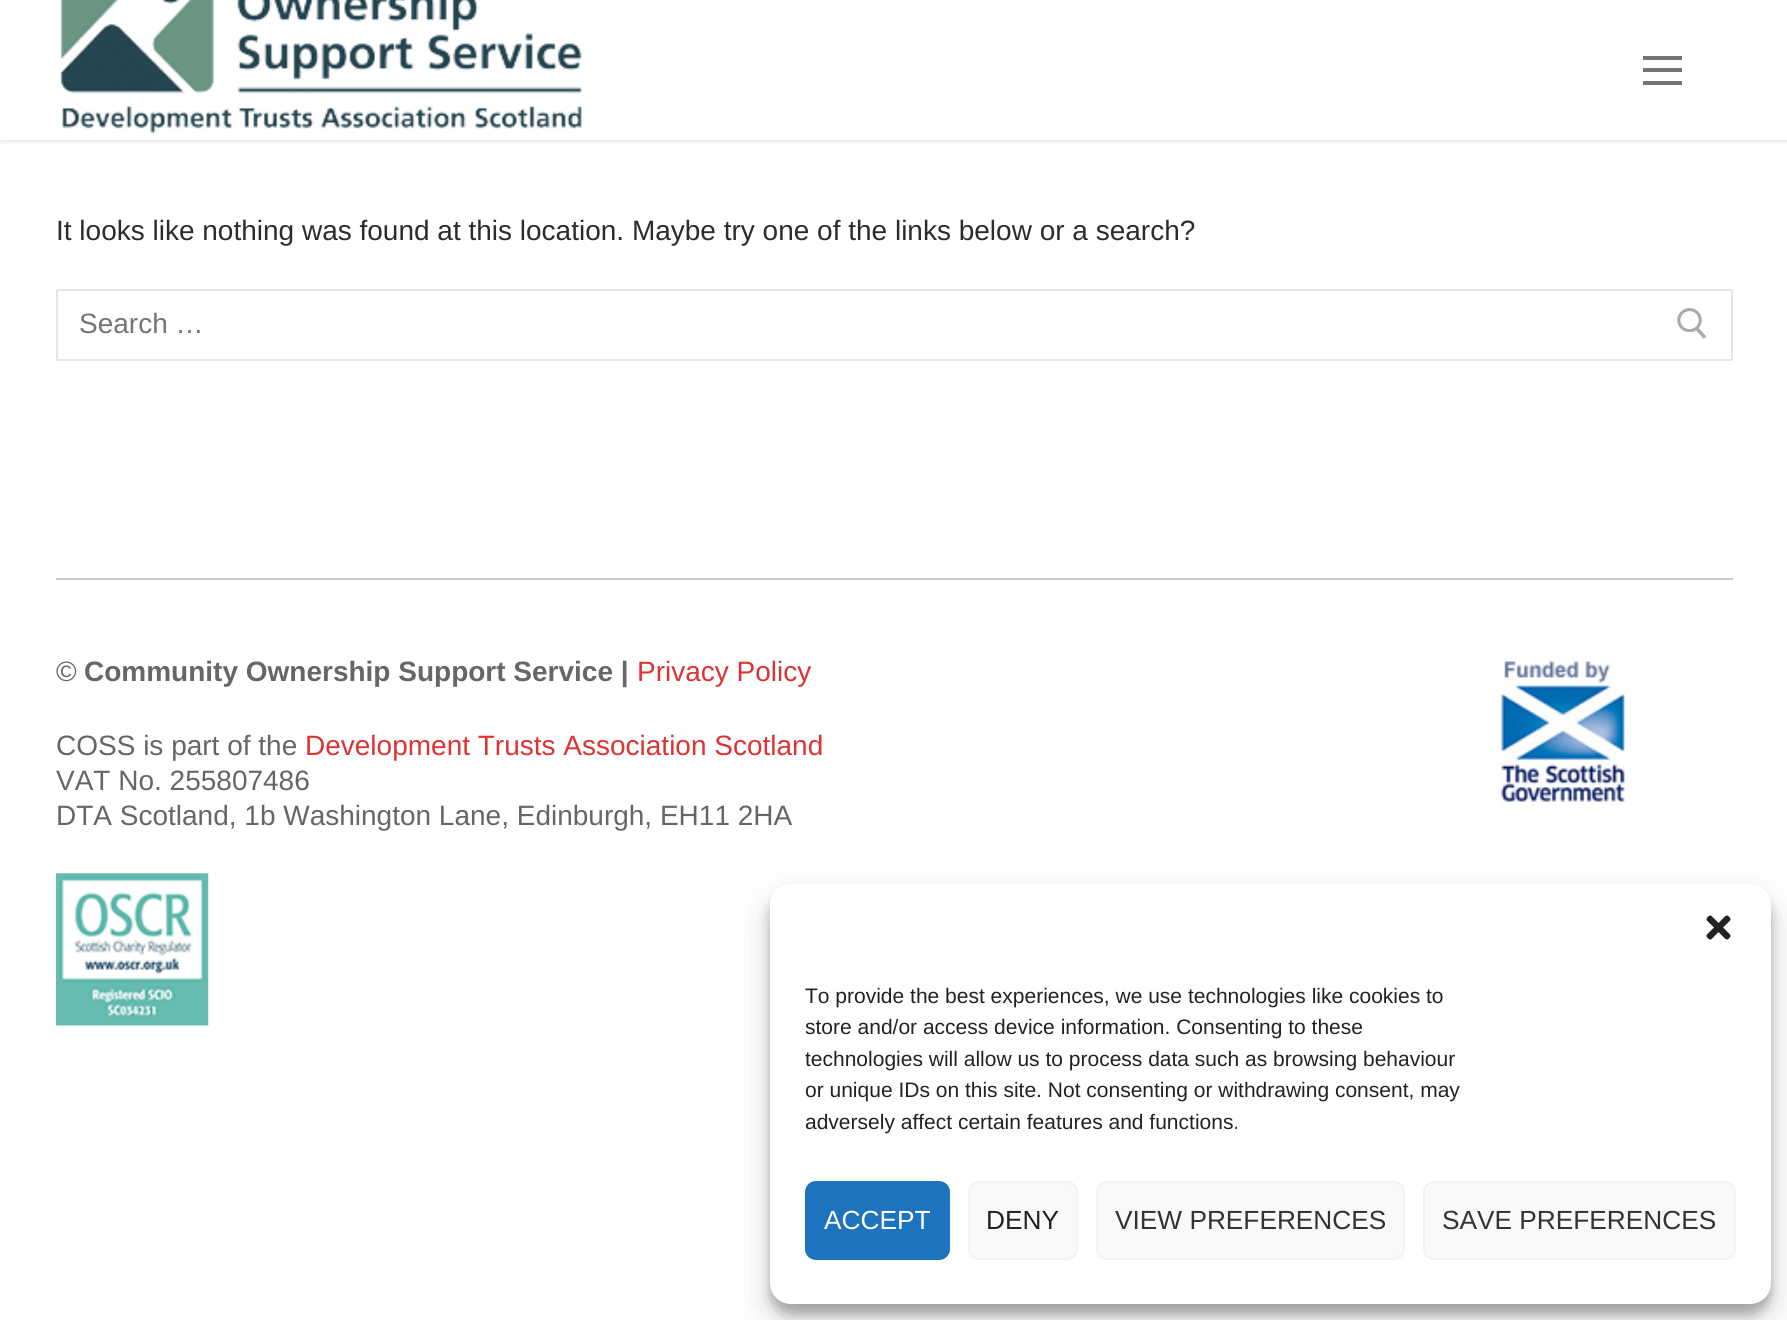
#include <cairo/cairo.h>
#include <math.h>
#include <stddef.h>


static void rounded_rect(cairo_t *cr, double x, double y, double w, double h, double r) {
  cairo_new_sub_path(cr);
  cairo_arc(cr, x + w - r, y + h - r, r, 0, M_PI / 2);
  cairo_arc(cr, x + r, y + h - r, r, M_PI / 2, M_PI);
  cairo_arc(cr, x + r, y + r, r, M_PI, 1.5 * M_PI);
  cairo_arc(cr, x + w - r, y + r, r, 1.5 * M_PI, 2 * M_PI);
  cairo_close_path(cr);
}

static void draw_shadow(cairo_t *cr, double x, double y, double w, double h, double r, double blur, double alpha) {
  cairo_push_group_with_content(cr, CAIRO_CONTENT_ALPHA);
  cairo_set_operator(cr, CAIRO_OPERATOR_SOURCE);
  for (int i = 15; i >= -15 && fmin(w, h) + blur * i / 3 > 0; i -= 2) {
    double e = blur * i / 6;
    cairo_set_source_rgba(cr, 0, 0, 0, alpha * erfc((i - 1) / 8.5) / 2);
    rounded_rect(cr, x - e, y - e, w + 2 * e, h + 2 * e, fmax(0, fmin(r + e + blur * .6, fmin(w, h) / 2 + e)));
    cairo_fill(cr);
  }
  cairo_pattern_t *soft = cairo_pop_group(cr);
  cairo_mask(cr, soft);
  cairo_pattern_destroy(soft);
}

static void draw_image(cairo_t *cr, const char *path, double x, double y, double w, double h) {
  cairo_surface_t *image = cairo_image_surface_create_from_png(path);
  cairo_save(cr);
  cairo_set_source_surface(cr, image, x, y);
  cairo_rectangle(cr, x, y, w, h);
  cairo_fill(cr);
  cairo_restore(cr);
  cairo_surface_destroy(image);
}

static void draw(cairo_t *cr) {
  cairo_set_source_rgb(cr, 1, 1, 1);
  cairo_paint(cr);
  cairo_save(cr);
  cairo_rectangle(cr, 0, 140, 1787, 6);
  cairo_clip(cr);
  cairo_set_source_rgb(cr, 225 / 255.0, 229 / 255.0, 234 / 255.0);
  draw_shadow(cr, 0, 2, 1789, 140, 0, 2, 1);
  cairo_restore(cr);
  draw_image(cr, "images/1.png", 60, 0, 522, 134);
  cairo_set_source_rgb(cr, 115 / 255.0, 115 / 255.0, 115 / 255.0);
  cairo_rectangle(cr, 1643, 68, 39, 4);
  cairo_fill(cr);
  cairo_rectangle(cr, 1643, 56, 39, 4);
  cairo_fill(cr);
  cairo_rectangle(cr, 1643, 81, 39, 4);
  cairo_fill(cr);
  rounded_rect(cr, 57, 290, 1675, 70, 1);
  cairo_set_source_rgb(cr, 229 / 255.0, 229 / 255.0, 229 / 255.0);
  cairo_stroke(cr);
  draw_image(cr, "images/2.png", 1677, 308, 30, 31);
  cairo_set_source_rgb(cr, 204 / 255.0, 204 / 255.0, 204 / 255.0);
  cairo_rectangle(cr, 56, 578, 1677, 2);
  cairo_fill(cr);
  draw_image(cr, "images/3.png", 56, 873, 153, 153);
  draw_image(cr, "images/4.png", 1500, 661, 125, 144);
  cairo_set_source_rgb(cr, 0, 0, 0);
  draw_shadow(cr, 770, 894, 1001, 420, 21, 5, 0.23);
  draw_shadow(cr, 770, 901, 1001, 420, 21, 17.5, 0.19);
  cairo_set_source_rgb(cr, 1, 1, 1);
  rounded_rect(cr, 770, 884, 1001, 420, 21);
  cairo_fill(cr);
  draw_image(cr, "images/5.png", 1706, 915, 25, 25);
  cairo_set_source_rgb(cr, 30 / 255.0, 115 / 255.0, 190 / 255.0);
  rounded_rect(cr, 806, 1182, 143, 77, 10);
  cairo_fill_preserve(cr);
  cairo_stroke(cr);
  cairo_set_source_rgb(cr, 249 / 255.0, 249 / 255.0, 249 / 255.0);
  rounded_rect(cr, 969, 1182, 108, 77, 10);
  cairo_fill_preserve(cr);
  cairo_set_source_rgb(cr, 242 / 255.0, 242 / 255.0, 242 / 255.0);
  cairo_stroke(cr);
  cairo_set_source_rgb(cr, 249 / 255.0, 249 / 255.0, 249 / 255.0);
  rounded_rect(cr, 1097, 1182, 307, 77, 10);
  cairo_fill_preserve(cr);
  cairo_set_source_rgb(cr, 242 / 255.0, 242 / 255.0, 242 / 255.0);
  cairo_stroke(cr);
  cairo_set_source_rgb(cr, 249 / 255.0, 249 / 255.0, 249 / 255.0);
  rounded_rect(cr, 1424, 1182, 311, 77, 10);
  cairo_fill_preserve(cr);
  cairo_set_source_rgb(cr, 242 / 255.0, 242 / 255.0, 242 / 255.0);
  cairo_stroke(cr);
  cairo_select_font_face(cr, "Liberation Sans", CAIRO_FONT_SLANT_NORMAL, CAIRO_FONT_WEIGHT_NORMAL);
  cairo_set_font_size(cr, 28);
  cairo_set_source_rgb(cr, 45 / 255.0, 44 / 255.0, 43 / 255.0);
  cairo_move_to(cr, 56, 240);
  cairo_show_text(cr, "It looks like nothing was found at this location. Maybe try one of the links below or a search?");
  cairo_set_source_rgb(cr, 117 / 255.0, 117 / 255.0, 117 / 255.0);
  cairo_move_to(cr, 79, 333);
  cairo_show_text(cr, "Search …");
  cairo_set_source_rgb(cr, 102 / 255.0, 102 / 255.0, 102 / 255.0);
  cairo_move_to(cr, 56, 681);
  cairo_show_text(cr, "©");
  cairo_select_font_face(cr, "Liberation Sans", CAIRO_FONT_SLANT_NORMAL, CAIRO_FONT_WEIGHT_BOLD);
  cairo_move_to(cr, 84, 681);
  cairo_show_text(cr, "Community Ownership Support Service |");
  cairo_select_font_face(cr, "Liberation Sans", CAIRO_FONT_SLANT_NORMAL, CAIRO_FONT_WEIGHT_NORMAL);
  cairo_set_source_rgb(cr, 221 / 255.0, 51 / 255.0, 51 / 255.0);
  cairo_move_to(cr, 637, 681);
  cairo_show_text(cr, "Privacy Policy");
  cairo_set_source_rgb(cr, 102 / 255.0, 102 / 255.0, 102 / 255.0);
  cairo_move_to(cr, 56, 755);
  cairo_show_text(cr, "COSS is part of the");
  cairo_set_source_rgb(cr, 221 / 255.0, 51 / 255.0, 51 / 255.0);
  cairo_move_to(cr, 305, 755);
  cairo_show_text(cr, "Development Trusts Association Scotland");
  cairo_set_source_rgb(cr, 102 / 255.0, 102 / 255.0, 102 / 255.0);
  cairo_move_to(cr, 56, 790);
  cairo_show_text(cr, "VAT No. 255807486");
  cairo_move_to(cr, 56, 825);
  cairo_show_text(cr, "DTA Scotland, 1b Washington Lane, Edinburgh, EH11 2HA");
  cairo_set_font_size(cr, 21);
  cairo_set_source_rgb(cr, 34 / 255.0, 34 / 255.0, 34 / 255.0);
  cairo_move_to(cr, 805, 1003);
  cairo_show_text(cr, "To provide the best experiences, we use technologies like cookies to");
  cairo_move_to(cr, 805, 1034);
  cairo_show_text(cr, "store and/or access device information. Consenting to these");
  cairo_move_to(cr, 805, 1066);
  cairo_show_text(cr, "technologies will allow us to process data such as browsing behaviour");
  cairo_move_to(cr, 805, 1097);
  cairo_show_text(cr, "or unique IDs on this site. Not consenting or withdrawing consent, may");
  cairo_move_to(cr, 805, 1129);
  cairo_show_text(cr, "adversely affect certain features and functions.");
  cairo_set_font_size(cr, 26.25);
  cairo_set_source_rgb(cr, 1, 1, 1);
  cairo_move_to(cr, 824, 1229);
  cairo_show_text(cr, "ACCEPT");
  cairo_set_source_rgb(cr, 34 / 255.0, 34 / 255.0, 34 / 255.0);
  cairo_move_to(cr, 986, 1229);
  cairo_show_text(cr, "DENY");
  cairo_set_source_rgb(cr, 51 / 255.0, 51 / 255.0, 51 / 255.0);
  cairo_move_to(cr, 1115, 1229);
  cairo_show_text(cr, "VIEW PREFERENCES");
  cairo_move_to(cr, 1442, 1229);
  cairo_show_text(cr, "SAVE PREFERENCES");
}

int main(void) {
  cairo_surface_t *surface = cairo_image_surface_create(CAIRO_FORMAT_RGB24, 1787, 1320);
  cairo_t *cr = cairo_create(surface);
  cairo_font_options_t *options = cairo_font_options_create();
  cairo_font_options_set_hint_metrics(options, CAIRO_HINT_METRICS_OFF);
  cairo_font_options_set_hint_style(options, CAIRO_HINT_STYLE_NONE);
  cairo_set_font_options(cr, options);
  cairo_set_miter_limit(cr, 4);
  draw(cr);
  cairo_surface_write_to_png(surface, "out.png");
  cairo_font_options_destroy(options);
  cairo_destroy(cr);
  cairo_surface_destroy(surface);
  return 0;
}
